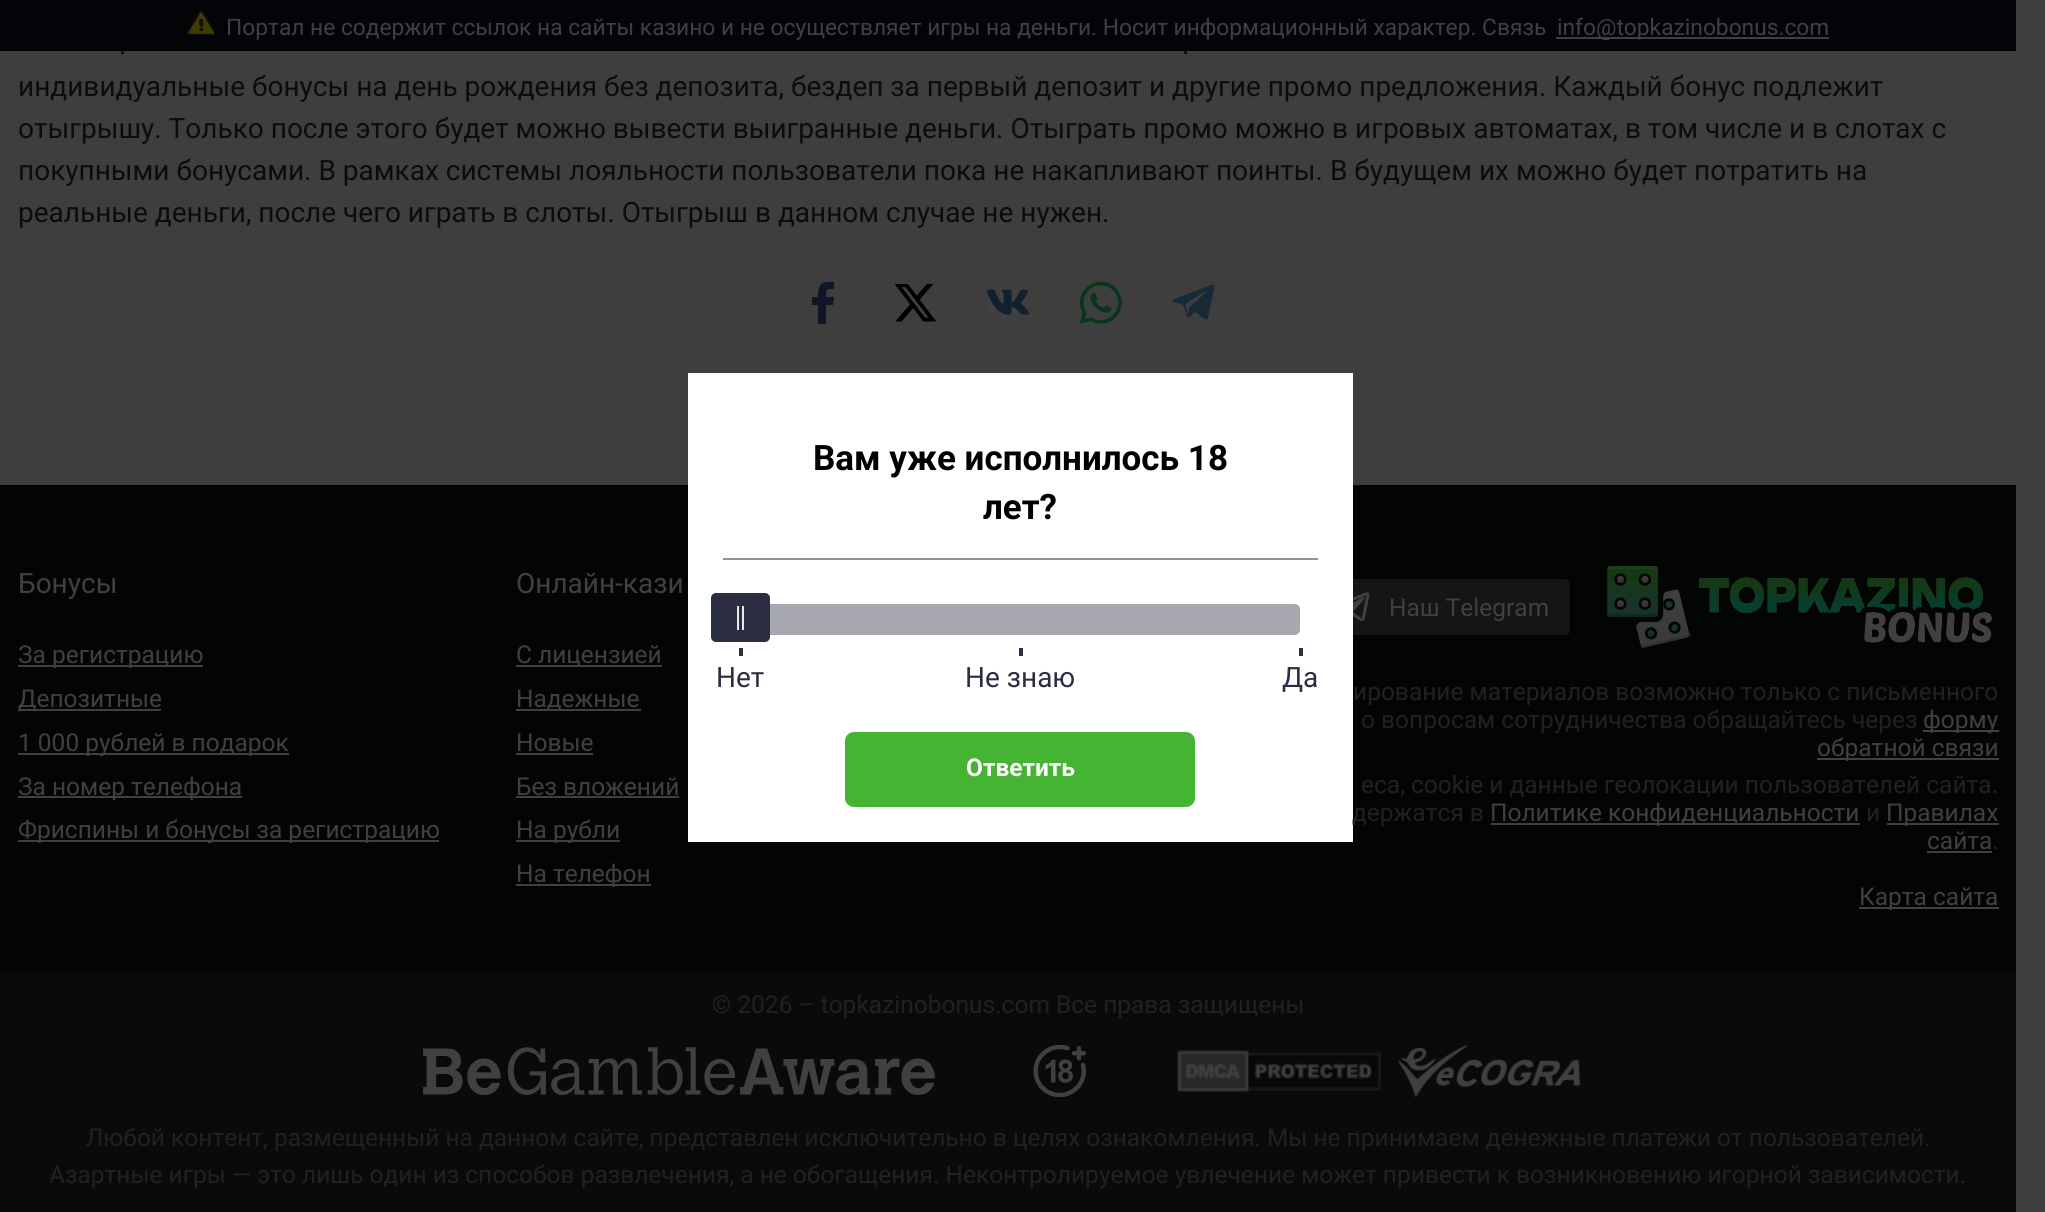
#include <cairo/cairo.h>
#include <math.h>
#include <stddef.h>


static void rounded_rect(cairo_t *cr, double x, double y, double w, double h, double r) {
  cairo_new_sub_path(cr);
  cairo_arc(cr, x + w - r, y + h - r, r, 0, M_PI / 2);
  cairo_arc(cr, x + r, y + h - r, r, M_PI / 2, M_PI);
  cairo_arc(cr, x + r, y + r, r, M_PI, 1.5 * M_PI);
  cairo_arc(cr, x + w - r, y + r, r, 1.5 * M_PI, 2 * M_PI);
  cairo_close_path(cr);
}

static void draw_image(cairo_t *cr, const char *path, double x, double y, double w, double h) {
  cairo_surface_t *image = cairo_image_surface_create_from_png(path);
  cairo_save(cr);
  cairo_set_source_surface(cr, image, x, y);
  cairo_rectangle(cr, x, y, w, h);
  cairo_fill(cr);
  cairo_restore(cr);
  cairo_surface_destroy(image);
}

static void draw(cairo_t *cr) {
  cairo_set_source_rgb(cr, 62 / 255.0, 62 / 255.0, 62 / 255.0);
  cairo_paint(cr);
  cairo_set_source_rgb(cr, 3 / 255.0, 4 / 255.0, 7 / 255.0);
  cairo_rectangle(cr, 0, 0, 2016, 51);
  cairo_fill(cr);
  draw_image(cr, "images/1.png", 187, 11, 28, 24);
  cairo_set_source_rgb(cr, 64 / 255.0, 64 / 255.0, 64 / 255.0);
  cairo_rectangle(cr, 1556, 37, 273, 2);
  cairo_fill(cr);
  cairo_set_source_rgb(cr, 15 / 255.0, 22 / 255.0, 38 / 255.0);
  cairo_set_fill_rule(cr, CAIRO_FILL_RULE_EVEN_ODD);
  cairo_new_path(cr);
  cairo_move_to(cr, 826, 324);
  cairo_line_to(cr, 826, 305);
  cairo_line_to(cr, 833, 305);
  cairo_line_to(cr, 834, 297);
  cairo_line_to(cr, 826, 297);
  cairo_curve_to(cr, 826, 289, 826, 289, 834, 289);
  cairo_line_to(cr, 834, 282);
  cairo_curve_to(cr, 821, 281, 818, 284, 818, 297);
  cairo_line_to(cr, 812, 297);
  cairo_line_to(cr, 812, 305);
  cairo_line_to(cr, 818, 305);
  cairo_line_to(cr, 818, 324);
  cairo_close_path(cr);
  cairo_fill(cr);
  draw_image(cr, "images/2.png", 894, 284, 42, 38);
  draw_image(cr, "images/3.png", 987, 289, 42, 26);
  draw_image(cr, "images/4.png", 1079, 281, 43, 43);
  draw_image(cr, "images/5.png", 1172, 284, 43, 36);
  cairo_set_source_rgb(cr, 3 / 255.0, 5 / 255.0, 3 / 255.0);
  cairo_rectangle(cr, 0, 485, 2016, 486);
  cairo_fill(cr);
  cairo_set_source_rgb(cr, 21 / 255.0, 21 / 255.0, 21 / 255.0);
  rounded_rect(cr, 1314, 579, 256, 56, 5);
  cairo_fill(cr);
  cairo_set_source_rgb(cr, 1, 1, 1);
  cairo_rectangle(cr, 688, 373, 665, 469);
  cairo_fill(cr);
  cairo_set_source_rgb(cr, 146 / 255.0, 146 / 255.0, 147 / 255.0);
  cairo_rectangle(cr, 723, 558, 595, 2);
  cairo_fill(cr);
  cairo_set_source_rgb(cr, 250 / 255.0, 250 / 255.0, 250 / 255.0);
  rounded_rect(cr, 740, 604, 560, 31, 7);
  cairo_fill(cr);
  cairo_set_source_rgba(cr, 43 / 255.0, 46 / 255.0, 65 / 255.0, 0.4);
  rounded_rect(cr, 740, 604, 560, 31, 5);
  cairo_fill(cr);
  cairo_set_source_rgb(cr, 43 / 255.0, 46 / 255.0, 65 / 255.0);
  rounded_rect(cr, 712, 594, 57, 47, 4);
  cairo_fill_preserve(cr);
  cairo_stroke(cr);
  cairo_set_source_rgb(cr, 232 / 255.0, 231 / 255.0, 230 / 255.0);
  cairo_rectangle(cr, 737, 606, 2, 24);
  cairo_fill(cr);
  cairo_rectangle(cr, 742, 606, 2, 24);
  cairo_fill(cr);
  cairo_set_source_rgb(cr, 43 / 255.0, 46 / 255.0, 65 / 255.0);
  cairo_rectangle(cr, 739, 648, 4, 8);
  cairo_fill(cr);
  cairo_rectangle(cr, 1019, 648, 4, 8);
  cairo_fill(cr);
  cairo_rectangle(cr, 1299, 648, 4, 8);
  cairo_fill(cr);
  cairo_set_source_rgb(cr, 69 / 255.0, 180 / 255.0, 51 / 255.0);
  rounded_rect(cr, 846, 733, 348, 73, 8);
  cairo_fill_preserve(cr);
  cairo_stroke(cr);
  cairo_set_source_rgb(cr, 64 / 255.0, 64 / 255.0, 64 / 255.0);
  cairo_rectangle(cr, 18, 665, 185, 2);
  cairo_fill(cr);
  cairo_rectangle(cr, 18, 709, 143, 2);
  cairo_fill(cr);
  cairo_rectangle(cr, 18, 753, 271, 2);
  cairo_fill(cr);
  cairo_rectangle(cr, 18, 796, 224, 2);
  cairo_fill(cr);
  cairo_rectangle(cr, 18, 840, 421, 2);
  cairo_fill(cr);
  cairo_rectangle(cr, 516, 665, 146, 2);
  cairo_fill(cr);
  cairo_rectangle(cr, 516, 709, 125, 2);
  cairo_fill(cr);
  cairo_rectangle(cr, 516, 753, 77, 2);
  cairo_fill(cr);
  cairo_rectangle(cr, 516, 796, 163, 2);
  cairo_fill(cr);
  cairo_rectangle(cr, 516, 840, 104, 2);
  cairo_fill(cr);
  cairo_rectangle(cr, 516, 884, 135, 2);
  cairo_fill(cr);
  draw_image(cr, "images/6.png", 1353, 592, 17, 30);
  draw_image(cr, "images/7.png", 1607, 566, 385, 84);
  cairo_rectangle(cr, 1923, 730, 76, 2);
  cairo_fill(cr);
  cairo_rectangle(cr, 1817, 758, 182, 2);
  cairo_fill(cr);
  cairo_rectangle(cr, 1491, 823, 369, 2);
  cairo_fill(cr);
  cairo_rectangle(cr, 1887, 823, 112, 2);
  cairo_fill(cr);
  cairo_rectangle(cr, 1927, 851, 65, 2);
  cairo_fill(cr);
  cairo_rectangle(cr, 1859, 907, 140, 2);
  cairo_fill(cr);
  cairo_set_source_rgb(cr, 9 / 255.0, 10 / 255.0, 9 / 255.0);
  cairo_rectangle(cr, 0, 971, 2016, 241);
  cairo_fill(cr);
  draw_image(cr, "images/8.png", 423, 1047, 512, 48);
  draw_image(cr, "images/9.png", 1033, 1045, 53, 52);
  draw_image(cr, "images/10.png", 1177, 1050, 204, 42);
  draw_image(cr, "images/11.png", 1398, 1044, 183, 54);
  cairo_select_font_face(cr, "Roboto", CAIRO_FONT_SLANT_NORMAL, CAIRO_FONT_WEIGHT_NORMAL);
  cairo_set_font_size(cr, 22.75);
  cairo_set_source_rgb(cr, 64 / 255.0, 64 / 255.0, 64 / 255.0);
  cairo_move_to(cr, 226, 35);
  cairo_show_text(cr, "Портал не содержит ссылок на сайты казино и не осуществляет игры на деньги. Носит информационный характер. Связь");
  cairo_move_to(cr, 1557, 35);
  cairo_show_text(cr, "info@topkazinobonus.com");
  cairo_set_font_size(cr, 28);
  cairo_set_source_rgb(cr, 12 / 255.0, 12 / 255.0, 12 / 255.0);
  cairo_move_to(cr, 119, 54);
  cairo_show_text(cr, ".");
  cairo_move_to(cr, 1182, 54);
  cairo_show_text(cr, ".");
  cairo_move_to(cr, 18, 96);
  cairo_show_text(cr, "индивидуальные бонусы на день рождения без депозита, бездеп за первый депозит и другие промо предложения. Каждый бонус подлежит");
  cairo_move_to(cr, 18, 138);
  cairo_show_text(cr, "отыгрышу. Только после этого будет можно вывести выигранные деньги. Отыграть промо можно в игровых автоматах, в том числе и в слотах с");
  cairo_move_to(cr, 18, 180);
  cairo_show_text(cr, "покупными бонусами. В рамках системы лояльности пользователи пока не накапливают поинты. В будущем их можно будет потратить на");
  cairo_move_to(cr, 18, 222);
  cairo_show_text(cr, "реальные деньги, после чего играть в слоты. Отыгрыш в данном случае не нужен.");
  cairo_select_font_face(cr, "Roboto", CAIRO_FONT_SLANT_NORMAL, CAIRO_FONT_WEIGHT_BOLD);
  cairo_set_font_size(cr, 35);
  cairo_set_source_rgb(cr, 0, 0, 0);
  cairo_move_to(cr, 813, 470);
  cairo_show_text(cr, "Вам уже исполнилось 18");
  cairo_move_to(cr, 983, 519);
  cairo_show_text(cr, "лет?");
  cairo_select_font_face(cr, "Roboto", CAIRO_FONT_SLANT_NORMAL, CAIRO_FONT_WEIGHT_NORMAL);
  cairo_set_font_size(cr, 28);
  cairo_set_source_rgb(cr, 43 / 255.0, 46 / 255.0, 65 / 255.0);
  cairo_move_to(cr, 716, 687);
  cairo_show_text(cr, "Нет");
  cairo_move_to(cr, 965, 687);
  cairo_show_text(cr, "Не знаю");
  cairo_move_to(cr, 1282, 687);
  cairo_show_text(cr, "Да");
  cairo_select_font_face(cr, "Roboto", CAIRO_FONT_SLANT_NORMAL, CAIRO_FONT_WEIGHT_BOLD);
  cairo_set_font_size(cr, 24.5);
  cairo_set_source_rgb(cr, 1, 1, 1);
  cairo_move_to(cr, 966, 776);
  cairo_show_text(cr, "Ответить");
  cairo_select_font_face(cr, "Roboto", CAIRO_FONT_SLANT_NORMAL, CAIRO_FONT_WEIGHT_NORMAL);
  cairo_set_font_size(cr, 28);
  cairo_set_source_rgb(cr, 64 / 255.0, 64 / 255.0, 64 / 255.0);
  cairo_move_to(cr, 18, 593);
  cairo_show_text(cr, "Бонусы");
  cairo_set_font_size(cr, 24.5);
  cairo_move_to(cr, 18, 663);
  cairo_show_text(cr, "За регистрацию");
  cairo_move_to(cr, 18, 707);
  cairo_show_text(cr, "Депозитные");
  cairo_move_to(cr, 18, 751);
  cairo_show_text(cr, "1 000 рублей в подарок");
  cairo_move_to(cr, 18, 795);
  cairo_show_text(cr, "За номер телефона");
  cairo_move_to(cr, 18, 838);
  cairo_show_text(cr, "Фриспины и бонусы за регистрацию");
  cairo_set_font_size(cr, 28);
  cairo_move_to(cr, 516, 593);
  cairo_show_text(cr, "Онлайн-кази");
  cairo_set_font_size(cr, 24.5);
  cairo_move_to(cr, 516, 663);
  cairo_show_text(cr, "С лицензией");
  cairo_move_to(cr, 516, 707);
  cairo_show_text(cr, "Надежные");
  cairo_move_to(cr, 516, 751);
  cairo_show_text(cr, "Новые");
  cairo_move_to(cr, 516, 795);
  cairo_show_text(cr, "Без вложений");
  cairo_move_to(cr, 516, 838);
  cairo_show_text(cr, "На рубли");
  cairo_move_to(cr, 516, 882);
  cairo_show_text(cr, "На телефон");
  cairo_move_to(cr, 1389, 616);
  cairo_show_text(cr, "Наш Telegram");
  cairo_set_source_rgb(cr, 33 / 255.0, 33 / 255.0, 33 / 255.0);
  cairo_move_to(cr, 1353, 700);
  cairo_show_text(cr, "ирование материалов возможно только с письменного");
  cairo_move_to(cr, 1361, 728);
  cairo_show_text(cr, "о вопросам сотрудничества обращайтесь через");
  cairo_set_source_rgb(cr, 64 / 255.0, 64 / 255.0, 64 / 255.0);
  cairo_move_to(cr, 1923, 728);
  cairo_show_text(cr, "форму");
  cairo_move_to(cr, 1817, 756);
  cairo_show_text(cr, "обратной связи");
  cairo_set_source_rgb(cr, 33 / 255.0, 33 / 255.0, 33 / 255.0);
  cairo_move_to(cr, 1361, 793);
  cairo_show_text(cr, "еса, сookie и данные геолокации пользователей сайта.");
  cairo_move_to(cr, 1352, 821);
  cairo_show_text(cr, "держатся в");
  cairo_set_source_rgb(cr, 64 / 255.0, 64 / 255.0, 64 / 255.0);
  cairo_move_to(cr, 1490, 821);
  cairo_show_text(cr, "Политике конфиденциальности");
  cairo_set_source_rgb(cr, 33 / 255.0, 33 / 255.0, 33 / 255.0);
  cairo_move_to(cr, 1866, 821);
  cairo_show_text(cr, "и");
  cairo_set_source_rgb(cr, 64 / 255.0, 64 / 255.0, 64 / 255.0);
  cairo_move_to(cr, 1886, 821);
  cairo_show_text(cr, "Правилах");
  cairo_move_to(cr, 1927, 849);
  cairo_show_text(cr, "сайта");
  cairo_set_source_rgb(cr, 33 / 255.0, 33 / 255.0, 33 / 255.0);
  cairo_move_to(cr, 1992, 849);
  cairo_show_text(cr, ".");
  cairo_set_source_rgb(cr, 64 / 255.0, 64 / 255.0, 64 / 255.0);
  cairo_move_to(cr, 1859, 905);
  cairo_show_text(cr, "Карта сайта");
  cairo_set_source_rgb(cr, 33 / 255.0, 33 / 255.0, 33 / 255.0);
  cairo_move_to(cr, 712, 1013);
  cairo_show_text(cr, "© 2026 – topkazinobonus.com Все права защищены");
  cairo_move_to(cr, 86, 1146);
  cairo_show_text(cr, "Любой контент, размещенный на данном сайте, представлен исключительно в целях ознакомления. Мы не принимаем денежные платежи от пользователей.");
  cairo_move_to(cr, 49, 1183);
  cairo_show_text(cr, "Азартные игры — это лишь один из способов развлечения, а не обогащения. Неконтролируемое увлечение может привести к возникновению игорной зависимости.");
}

int main(void) {
  cairo_surface_t *surface = cairo_image_surface_create(CAIRO_FORMAT_RGB24, 2045, 1212);
  cairo_t *cr = cairo_create(surface);
  cairo_font_options_t *options = cairo_font_options_create();
  cairo_font_options_set_hint_metrics(options, CAIRO_HINT_METRICS_OFF);
  cairo_font_options_set_hint_style(options, CAIRO_HINT_STYLE_NONE);
  cairo_set_font_options(cr, options);
  cairo_set_miter_limit(cr, 4);
  draw(cr);
  cairo_surface_write_to_png(surface, "out.png");
  cairo_font_options_destroy(options);
  cairo_destroy(cr);
  cairo_surface_destroy(surface);
  return 0;
}
